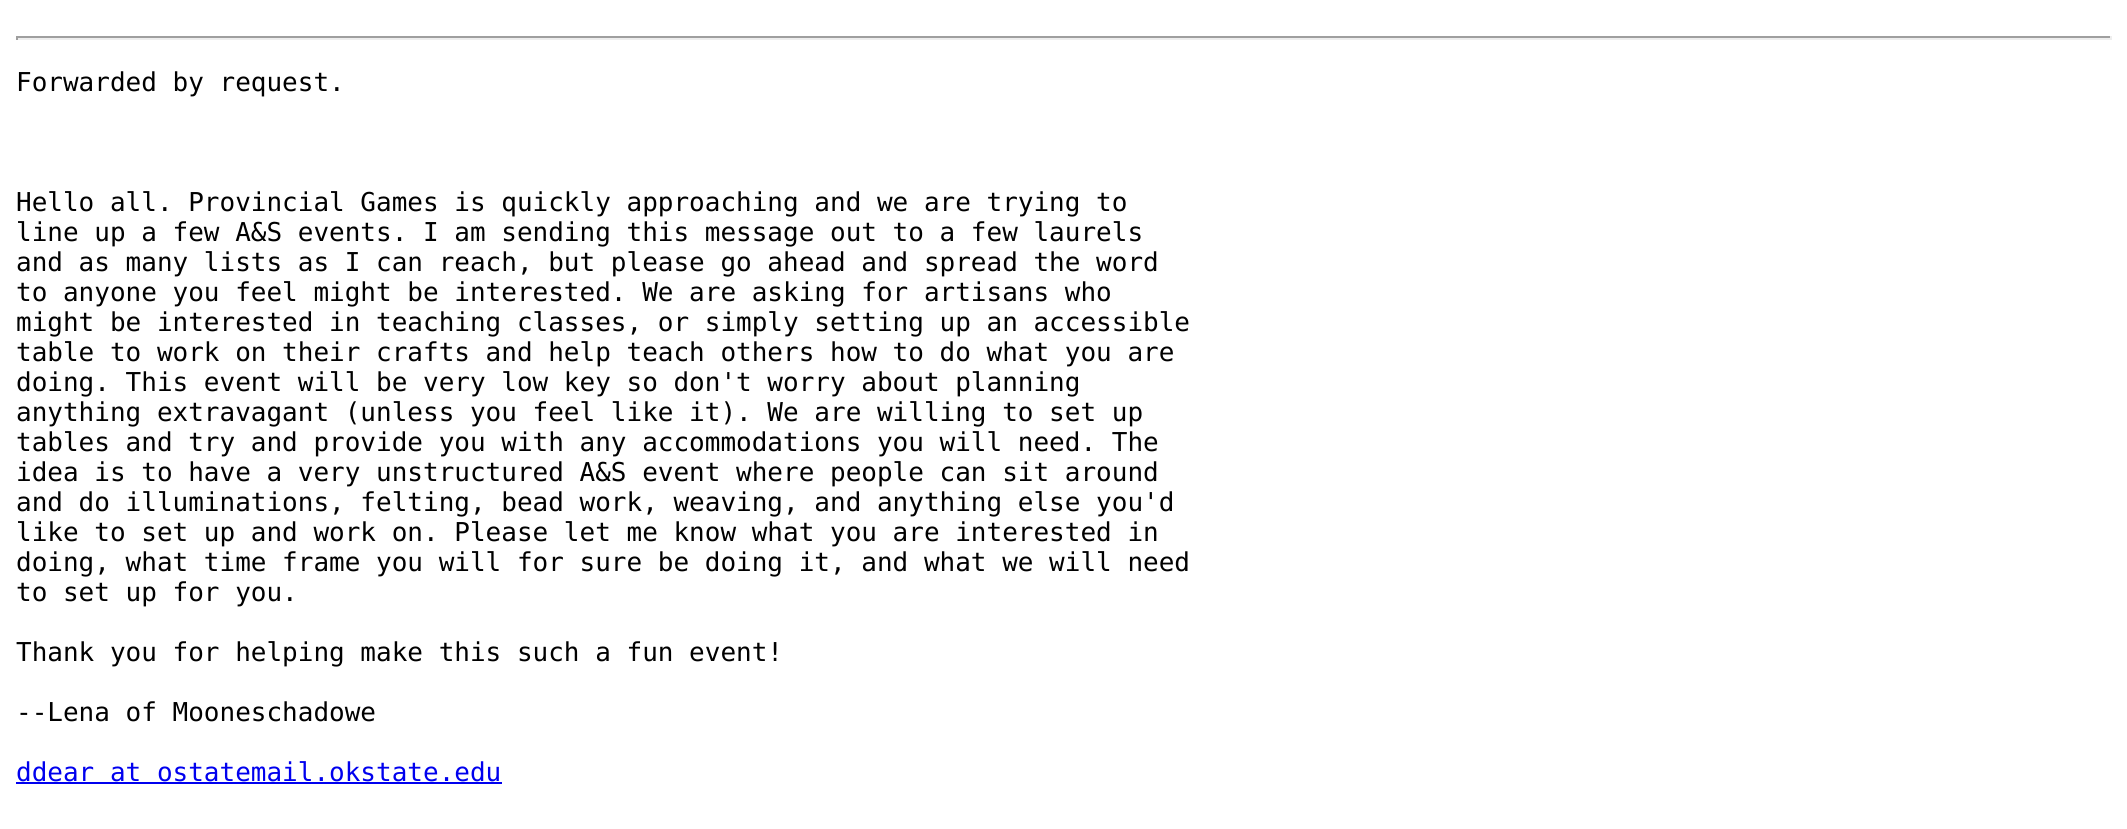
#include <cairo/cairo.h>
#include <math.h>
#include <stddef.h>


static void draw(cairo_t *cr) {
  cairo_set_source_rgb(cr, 1, 1, 1);
  cairo_paint(cr);
  cairo_set_source_rgb(cr, 159 / 255.0, 159 / 255.0, 159 / 255.0);
  cairo_rectangle(cr, 16, 36, 2096, 2);
  cairo_fill(cr);
  cairo_set_source_rgb(cr, 238 / 255.0, 238 / 255.0, 238 / 255.0);
  cairo_rectangle(cr, 2110, 36, 2, 4);
  cairo_fill(cr);
  cairo_rectangle(cr, 16, 38, 2096, 2);
  cairo_fill(cr);
  cairo_set_source_rgb(cr, 159 / 255.0, 159 / 255.0, 159 / 255.0);
  cairo_rectangle(cr, 16, 36, 2, 4);
  cairo_fill(cr);
  cairo_set_source_rgb(cr, 0, 0, 238 / 255.0);
  cairo_rectangle(cr, 16, 782, 486, 2);
  cairo_fill(cr);
  cairo_select_font_face(cr, "DejaVu Sans Mono", CAIRO_FONT_SLANT_NORMAL, CAIRO_FONT_WEIGHT_NORMAL);
  cairo_set_font_size(cr, 26);
  cairo_set_source_rgb(cr, 0, 0, 0);
  cairo_move_to(cr, 16, 91);
  cairo_show_text(cr, "Forwarded by request.");
  cairo_move_to(cr, 16, 211);
  cairo_show_text(cr, "Hello all. Provincial Games is quickly approaching and we are trying to");
  cairo_move_to(cr, 16, 241);
  cairo_show_text(cr, "line up a few A&S events. I am sending this message out to a few laurels");
  cairo_move_to(cr, 16, 271);
  cairo_show_text(cr, "and as many lists as I can reach, but please go ahead and spread the word");
  cairo_move_to(cr, 16, 301);
  cairo_show_text(cr, "to anyone you feel might be interested. We are asking for artisans who");
  cairo_move_to(cr, 16, 331);
  cairo_show_text(cr, "might be interested in teaching classes, or simply setting up an accessible");
  cairo_move_to(cr, 16, 361);
  cairo_show_text(cr, "table to work on their crafts and help teach others how to do what you are");
  cairo_move_to(cr, 16, 391);
  cairo_show_text(cr, "doing. This event will be very low key so don't worry about planning");
  cairo_move_to(cr, 16, 421);
  cairo_show_text(cr, "anything extravagant (unless you feel like it). We are willing to set up");
  cairo_move_to(cr, 16, 451);
  cairo_show_text(cr, "tables and try and provide you with any accommodations you will need. The");
  cairo_move_to(cr, 16, 481);
  cairo_show_text(cr, "idea is to have a very unstructured A&S event where people can sit around");
  cairo_move_to(cr, 16, 511);
  cairo_show_text(cr, "and do illuminations, felting, bead work, weaving, and anything else you'd");
  cairo_move_to(cr, 16, 541);
  cairo_show_text(cr, "like to set up and work on. Please let me know what you are interested in");
  cairo_move_to(cr, 16, 571);
  cairo_show_text(cr, "doing, what time frame you will for sure be doing it, and what we will need");
  cairo_move_to(cr, 16, 601);
  cairo_show_text(cr, "to set up for you.");
  cairo_move_to(cr, 16, 661);
  cairo_show_text(cr, "Thank you for helping make this such a fun event!");
  cairo_move_to(cr, 16, 721);
  cairo_show_text(cr, "--Lena of Mooneschadowe");
  cairo_set_source_rgb(cr, 0, 0, 238 / 255.0);
  cairo_move_to(cr, 16, 781);
  cairo_show_text(cr, "ddear at ostatemail.okstate.edu");
}

int main(void) {
  cairo_surface_t *surface = cairo_image_surface_create(CAIRO_FORMAT_RGB24, 2127, 829);
  cairo_t *cr = cairo_create(surface);
  cairo_font_options_t *options = cairo_font_options_create();
  cairo_font_options_set_hint_metrics(options, CAIRO_HINT_METRICS_OFF);
  cairo_font_options_set_hint_style(options, CAIRO_HINT_STYLE_NONE);
  cairo_set_font_options(cr, options);
  cairo_set_miter_limit(cr, 4);
  draw(cr);
  cairo_surface_write_to_png(surface, "out.png");
  cairo_font_options_destroy(options);
  cairo_destroy(cr);
  cairo_surface_destroy(surface);
  return 0;
}
